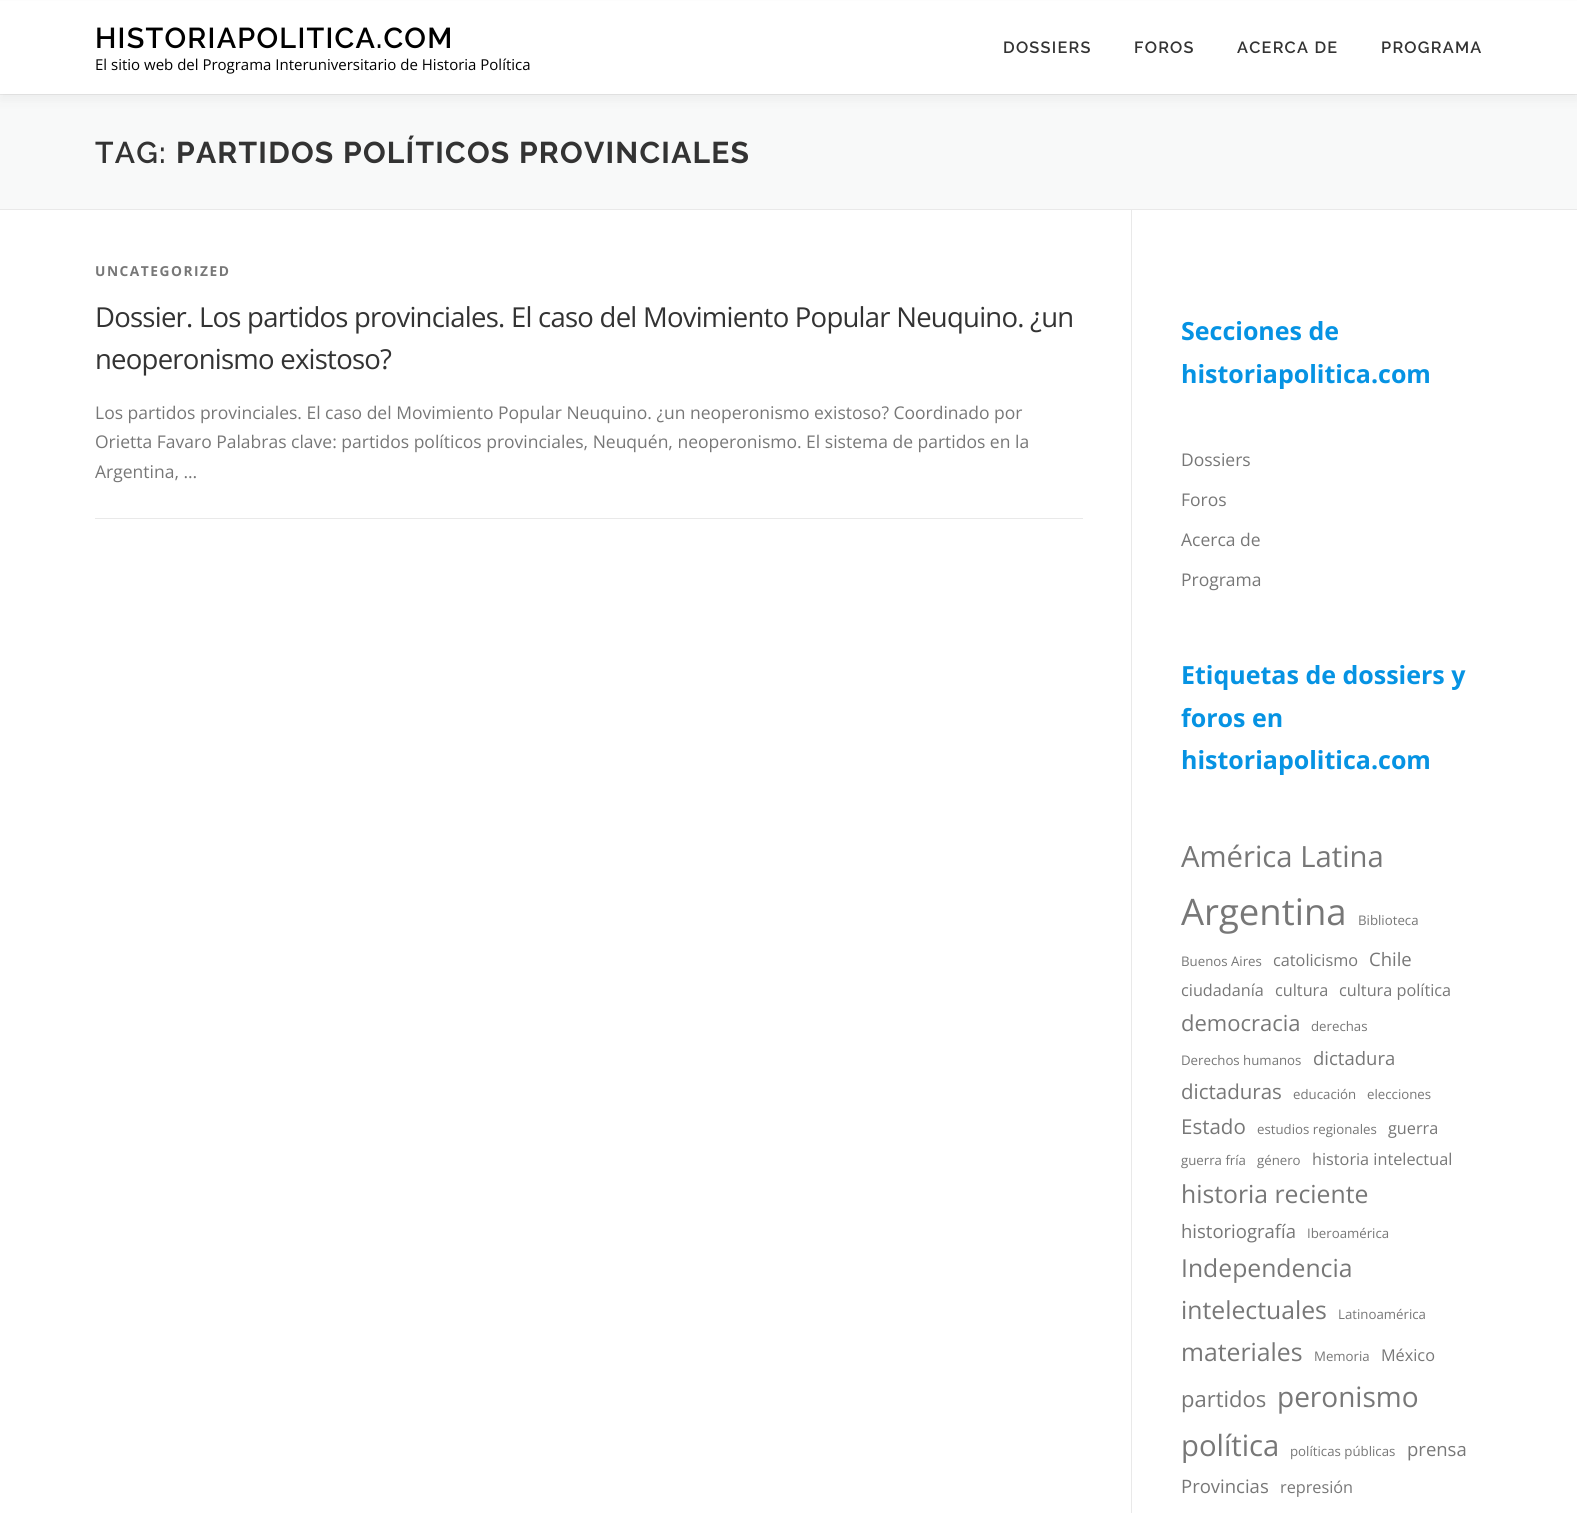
#include <cairo/cairo.h>
#include <math.h>
#include <stddef.h>


static void draw_spaced(cairo_t *cr, double x, double y, const char *s, double letter, double word) {
  cairo_move_to(cr, x, y);
  while (*s) {
    char ch[5] = {0};
    int n = 0;
    do ch[n++] = *s++; while ((*s & 0xC0) == 0x80);
    cairo_show_text(cr, ch);
    cairo_rel_move_to(cr, letter + word * (*ch == ' '), 0);
  }
}

static void rounded_rect(cairo_t *cr, double x, double y, double w, double h, double r) {
  cairo_new_sub_path(cr);
  cairo_arc(cr, x + w - r, y + h - r, r, 0, M_PI / 2);
  cairo_arc(cr, x + r, y + h - r, r, M_PI / 2, M_PI);
  cairo_arc(cr, x + r, y + r, r, M_PI, 1.5 * M_PI);
  cairo_arc(cr, x + w - r, y + r, r, 1.5 * M_PI, 2 * M_PI);
  cairo_close_path(cr);
}

static void draw_shadow(cairo_t *cr, double x, double y, double w, double h, double r, double blur, double alpha) {
  cairo_push_group_with_content(cr, CAIRO_CONTENT_ALPHA);
  cairo_set_operator(cr, CAIRO_OPERATOR_SOURCE);
  for (int i = 15; i >= -15 && fmin(w, h) + blur * i / 3 > 0; i -= 2) {
    double e = blur * i / 6;
    cairo_set_source_rgba(cr, 0, 0, 0, alpha * erfc((i - 1) / 8.5) / 2);
    rounded_rect(cr, x - e, y - e, w + 2 * e, h + 2 * e, fmax(0, fmin(r + e + blur * .6, fmin(w, h) / 2 + e)));
    cairo_fill(cr);
  }
  cairo_pattern_t *soft = cairo_pop_group(cr);
  cairo_mask(cr, soft);
  cairo_pattern_destroy(soft);
}

static void draw(cairo_t *cr) {
  cairo_set_source_rgb(cr, 1, 1, 1);
  cairo_paint(cr);
  cairo_set_source_rgb(cr, 248 / 255.0, 249 / 255.0, 249 / 255.0);
  cairo_rectangle(cr, 0, 95, 1577, 114);
  cairo_fill(cr);
  cairo_set_source_rgb(cr, 233 / 255.0, 233 / 255.0, 233 / 255.0);
  cairo_rectangle(cr, 0, 94, 1577, 1);
  cairo_fill(cr);
  cairo_set_source_rgb(cr, 50 / 255.0, 50 / 255.0, 50 / 255.0);
  draw_shadow(cr, 0, 6, 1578, 94, 0, 6, 0.06);
  cairo_set_source_rgb(cr, 1, 1, 1);
  cairo_rectangle(cr, 0, 1, 1577, 93);
  cairo_fill(cr);
  cairo_set_source_rgb(cr, 233 / 255.0, 233 / 255.0, 233 / 255.0);
  cairo_rectangle(cr, 0, 209, 1577, 1);
  cairo_fill(cr);
  cairo_rectangle(cr, 95, 518, 988, 1);
  cairo_fill(cr);
  cairo_rectangle(cr, 1131, 210, 1, 1303);
  cairo_fill(cr);
  cairo_select_font_face(cr, "Raleway SemiBold", CAIRO_FONT_SLANT_NORMAL, CAIRO_FONT_WEIGHT_NORMAL);
  cairo_set_font_size(cr, 28.75);
  cairo_set_source_rgb(cr, 0, 0, 0);
  draw_spaced(cr, 95, 48, "HISTORIAPOLITICA.COM", 1.25, 0);
  cairo_select_font_face(cr, "Open Sans", CAIRO_FONT_SLANT_NORMAL, CAIRO_FONT_WEIGHT_NORMAL);
  cairo_set_font_size(cr, 15);
  cairo_move_to(cr, 95, 70);
  cairo_show_text(cr, "El sitio web del Programa Interuniversitario de Historia Política");
  cairo_select_font_face(cr, "Raleway SemiBold", CAIRO_FONT_SLANT_NORMAL, CAIRO_FONT_WEIGHT_NORMAL);
  cairo_set_font_size(cr, 16.25);
  cairo_set_source_rgb(cr, 51 / 255.0, 51 / 255.0, 51 / 255.0);
  draw_spaced(cr, 1003, 53, "DOSSIERS", 1.25, 0);
  draw_spaced(cr, 1134, 53, "FOROS", 1.25, 0);
  draw_spaced(cr, 1237, 53, "ACERCA DE", 1.25, 0);
  draw_spaced(cr, 1381, 53, "PROGRAMA", 1.25, 0);
  cairo_set_font_size(cr, 30);
  draw_spaced(cr, 95, 163, "TAG:", 1.25, 0);
  cairo_select_font_face(cr, "Raleway", CAIRO_FONT_SLANT_NORMAL, CAIRO_FONT_WEIGHT_BOLD);
  draw_spaced(cr, 176, 163, "PARTIDOS POLÍTICOS PROVINCIALES", 1.25, 0);
  cairo_select_font_face(cr, "Open Sans", CAIRO_FONT_SLANT_NORMAL, CAIRO_FONT_WEIGHT_BOLD);
  cairo_set_font_size(cr, 13.75);
  cairo_set_source_rgb(cr, 119 / 255.0, 119 / 255.0, 119 / 255.0);
  draw_spaced(cr, 95, 276, "UNCATEGORIZED", 1.5, 0);
  cairo_select_font_face(cr, "Open Sans", CAIRO_FONT_SLANT_NORMAL, CAIRO_FONT_WEIGHT_NORMAL);
  cairo_set_font_size(cr, 27.5);
  cairo_set_source_rgb(cr, 51 / 255.0, 51 / 255.0, 51 / 255.0);
  draw_spaced(cr, 95, 327, "Dossier. Los partidos provinciales. El caso del Movimiento Popular Neuquino. ¿un", -0.75, 0);
  draw_spaced(cr, 95, 369, "neoperonismo existoso?", -0.75, 0);
  cairo_set_font_size(cr, 17.5);
  cairo_set_source_rgb(cr, 119 / 255.0, 119 / 255.0, 119 / 255.0);
  cairo_move_to(cr, 95, 419);
  cairo_show_text(cr, "Los partidos provinciales. El caso del Movimiento Popular Neuquino. ¿un neoperonismo existoso? Coordinado por");
  cairo_move_to(cr, 95, 448);
  cairo_show_text(cr, "Orietta Favaro Palabras clave: partidos políticos provinciales, Neuquén, neoperonismo. El sistema de partidos en la");
  cairo_move_to(cr, 95, 478);
  cairo_show_text(cr, "Argentina, …");
  cairo_select_font_face(cr, "Open Sans", CAIRO_FONT_SLANT_NORMAL, CAIRO_FONT_WEIGHT_BOLD);
  cairo_set_font_size(cr, 25);
  cairo_set_source_rgb(cr, 6 / 255.0, 147 / 255.0, 227 / 255.0);
  cairo_move_to(cr, 1181, 340);
  cairo_show_text(cr, "Secciones de");
  cairo_move_to(cr, 1181, 383);
  cairo_show_text(cr, "historiapolitica.com");
  cairo_select_font_face(cr, "Open Sans", CAIRO_FONT_SLANT_NORMAL, CAIRO_FONT_WEIGHT_NORMAL);
  cairo_set_font_size(cr, 17.5);
  cairo_set_source_rgb(cr, 119 / 255.0, 119 / 255.0, 119 / 255.0);
  cairo_move_to(cr, 1181, 466);
  cairo_show_text(cr, "Dossiers");
  cairo_move_to(cr, 1181, 506);
  cairo_show_text(cr, "Foros");
  cairo_move_to(cr, 1181, 546);
  cairo_show_text(cr, "Acerca de");
  cairo_move_to(cr, 1181, 586);
  cairo_show_text(cr, "Programa");
  cairo_select_font_face(cr, "Open Sans", CAIRO_FONT_SLANT_NORMAL, CAIRO_FONT_WEIGHT_BOLD);
  cairo_set_font_size(cr, 25);
  cairo_set_source_rgb(cr, 6 / 255.0, 147 / 255.0, 227 / 255.0);
  cairo_move_to(cr, 1181, 684);
  cairo_show_text(cr, "Etiquetas de dossiers y");
  cairo_move_to(cr, 1181, 727);
  cairo_show_text(cr, "foros en");
  cairo_move_to(cr, 1181, 769);
  cairo_show_text(cr, "historiapolitica.com");
  cairo_select_font_face(cr, "Open Sans", CAIRO_FONT_SLANT_NORMAL, CAIRO_FONT_WEIGHT_NORMAL);
  cairo_set_font_size(cr, 29.25);
  cairo_set_source_rgb(cr, 119 / 255.0, 119 / 255.0, 119 / 255.0);
  cairo_move_to(cr, 1181, 867);
  cairo_show_text(cr, "América Latina");
  cairo_set_font_size(cr, 36.5);
  cairo_move_to(cr, 1181, 925);
  cairo_show_text(cr, "Argentina");
  cairo_set_font_size(cr, 13.25);
  cairo_move_to(cr, 1358, 925);
  cairo_show_text(cr, "Biblioteca");
  cairo_move_to(cr, 1181, 966);
  cairo_show_text(cr, "Buenos Aires");
  cairo_set_font_size(cr, 16.25);
  cairo_move_to(cr, 1273, 966);
  cairo_show_text(cr, "catolicismo");
  cairo_set_font_size(cr, 18.5);
  cairo_move_to(cr, 1369, 966);
  cairo_show_text(cr, "Chile");
  cairo_set_font_size(cr, 16.25);
  cairo_move_to(cr, 1181, 996);
  cairo_show_text(cr, "ciudadanía");
  cairo_move_to(cr, 1275, 996);
  cairo_show_text(cr, "cultura");
  cairo_move_to(cr, 1339, 996);
  cairo_show_text(cr, "cultura política");
  cairo_set_font_size(cr, 22);
  cairo_move_to(cr, 1181, 1031);
  cairo_show_text(cr, "democracia");
  cairo_set_font_size(cr, 13.25);
  cairo_move_to(cr, 1311, 1031);
  cairo_show_text(cr, "derechas");
  cairo_move_to(cr, 1181, 1065);
  cairo_show_text(cr, "Derechos humanos");
  cairo_set_font_size(cr, 18.5);
  cairo_move_to(cr, 1313, 1065);
  cairo_show_text(cr, "dictadura");
  cairo_set_font_size(cr, 20.5);
  cairo_move_to(cr, 1181, 1099);
  cairo_show_text(cr, "dictaduras");
  cairo_set_font_size(cr, 13.25);
  cairo_move_to(cr, 1293, 1099);
  cairo_show_text(cr, "educación");
  cairo_move_to(cr, 1367, 1099);
  cairo_show_text(cr, "elecciones");
  cairo_set_font_size(cr, 20.5);
  cairo_move_to(cr, 1181, 1134);
  cairo_show_text(cr, "Estado");
  cairo_set_font_size(cr, 13.25);
  cairo_move_to(cr, 1257, 1134);
  cairo_show_text(cr, "estudios regionales");
  cairo_set_font_size(cr, 16.25);
  cairo_move_to(cr, 1388, 1134);
  cairo_show_text(cr, "guerra");
  cairo_set_font_size(cr, 13.25);
  cairo_move_to(cr, 1181, 1165);
  cairo_show_text(cr, "guerra fría");
  cairo_move_to(cr, 1257, 1165);
  cairo_show_text(cr, "género");
  cairo_set_font_size(cr, 16.25);
  cairo_move_to(cr, 1312, 1165);
  cairo_show_text(cr, "historia intelectual");
  cairo_set_font_size(cr, 24.75);
  cairo_move_to(cr, 1181, 1203);
  cairo_show_text(cr, "historia reciente");
  cairo_set_font_size(cr, 18.5);
  cairo_move_to(cr, 1181, 1238);
  cairo_show_text(cr, "historiografía");
  cairo_set_font_size(cr, 13.25);
  cairo_move_to(cr, 1307, 1238);
  cairo_show_text(cr, "Iberoamérica");
  cairo_set_font_size(cr, 24.75);
  cairo_move_to(cr, 1181, 1277);
  cairo_show_text(cr, "Independencia");
  cairo_move_to(cr, 1181, 1319);
  cairo_show_text(cr, "intelectuales");
  cairo_set_font_size(cr, 13.25);
  cairo_move_to(cr, 1338, 1319);
  cairo_show_text(cr, "Latinoamérica");
  cairo_set_font_size(cr, 24.75);
  cairo_move_to(cr, 1181, 1361);
  cairo_show_text(cr, "materiales");
  cairo_set_font_size(cr, 13.25);
  cairo_move_to(cr, 1314, 1361);
  cairo_show_text(cr, "Memoria");
  cairo_set_font_size(cr, 16.25);
  cairo_move_to(cr, 1381, 1361);
  cairo_show_text(cr, "México");
  cairo_set_font_size(cr, 22);
  cairo_move_to(cr, 1181, 1407);
  cairo_show_text(cr, "partidos");
  cairo_set_font_size(cr, 28);
  cairo_move_to(cr, 1277, 1407);
  cairo_show_text(cr, "peronismo");
  cairo_set_font_size(cr, 29.25);
  cairo_move_to(cr, 1181, 1456);
  cairo_show_text(cr, "política");
  cairo_set_font_size(cr, 13.25);
  cairo_move_to(cr, 1290, 1456);
  cairo_show_text(cr, "políticas públicas");
  cairo_set_font_size(cr, 18.5);
  cairo_move_to(cr, 1407, 1456);
  cairo_show_text(cr, "prensa");
  cairo_move_to(cr, 1181, 1493);
  cairo_show_text(cr, "Provincias");
  cairo_set_font_size(cr, 16.25);
  cairo_move_to(cr, 1280, 1493);
  cairo_show_text(cr, "represión");
}

int main(void) {
  cairo_surface_t *surface = cairo_image_surface_create(CAIRO_FORMAT_RGB24, 1577, 1513);
  cairo_t *cr = cairo_create(surface);
  cairo_font_options_t *options = cairo_font_options_create();
  cairo_font_options_set_hint_metrics(options, CAIRO_HINT_METRICS_OFF);
  cairo_font_options_set_hint_style(options, CAIRO_HINT_STYLE_NONE);
  cairo_set_font_options(cr, options);
  cairo_set_miter_limit(cr, 4);
  draw(cr);
  cairo_surface_write_to_png(surface, "out.png");
  cairo_font_options_destroy(options);
  cairo_destroy(cr);
  cairo_surface_destroy(surface);
  return 0;
}
